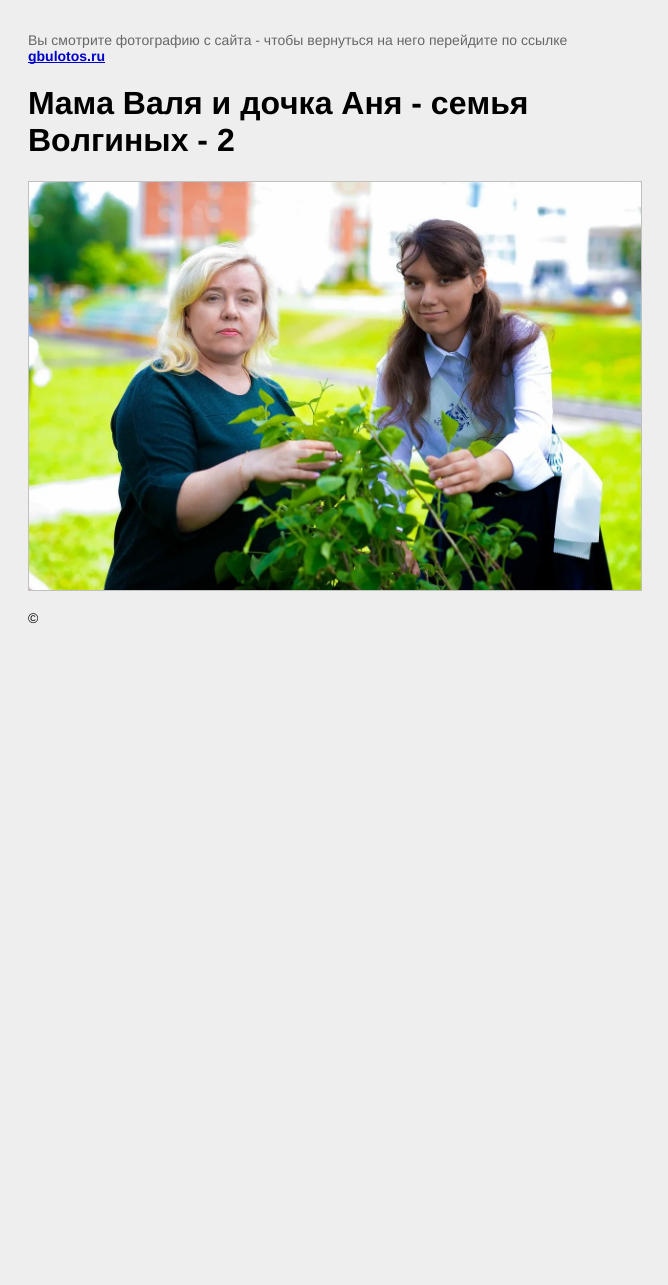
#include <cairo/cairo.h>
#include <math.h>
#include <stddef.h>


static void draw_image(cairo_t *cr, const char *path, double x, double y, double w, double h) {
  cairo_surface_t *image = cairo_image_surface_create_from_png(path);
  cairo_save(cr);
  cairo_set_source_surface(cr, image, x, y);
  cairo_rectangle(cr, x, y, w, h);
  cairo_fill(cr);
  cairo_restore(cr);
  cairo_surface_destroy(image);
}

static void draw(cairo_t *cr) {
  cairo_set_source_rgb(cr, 238 / 255.0, 238 / 255.0, 238 / 255.0);
  cairo_paint(cr);
  cairo_set_source_rgb(cr, 0, 0, 204 / 255.0);
  cairo_rectangle(cr, 28, 62, 77, 1);
  cairo_fill(cr);
  cairo_rectangle(cr, 28.5, 181.5, 613, 409);
  cairo_set_source_rgb(cr, 192 / 255.0, 192 / 255.0, 192 / 255.0);
  cairo_set_line_width(cr, 1);
  cairo_stroke(cr);
  draw_image(cr, "images/1.png", 29, 182, 612, 408);
  cairo_select_font_face(cr, "Liberation Sans", CAIRO_FONT_SLANT_NORMAL, CAIRO_FONT_WEIGHT_NORMAL);
  cairo_set_font_size(cr, 14);
  cairo_set_source_rgb(cr, 102 / 255.0, 102 / 255.0, 102 / 255.0);
  cairo_move_to(cr, 28, 45);
  cairo_show_text(cr, "Вы смотрите фотографию с сайта - чтобы вернуться на него перейдите по ссылке");
  cairo_select_font_face(cr, "Liberation Sans", CAIRO_FONT_SLANT_NORMAL, CAIRO_FONT_WEIGHT_BOLD);
  cairo_set_source_rgb(cr, 0, 0, 204 / 255.0);
  cairo_move_to(cr, 28, 61);
  cairo_show_text(cr, "gbulotos.ru");
  cairo_set_font_size(cr, 32);
  cairo_set_source_rgb(cr, 0, 0, 0);
  cairo_move_to(cr, 28, 114);
  cairo_show_text(cr, "Мама Валя и дочка Аня - семья");
  cairo_move_to(cr, 28, 151);
  cairo_show_text(cr, "Волгиных - 2");
  cairo_select_font_face(cr, "Liberation Sans", CAIRO_FONT_SLANT_NORMAL, CAIRO_FONT_WEIGHT_NORMAL);
  cairo_set_font_size(cr, 14);
  cairo_move_to(cr, 28, 623);
  cairo_show_text(cr, "©");
}

int main(void) {
  cairo_surface_t *surface = cairo_image_surface_create(CAIRO_FORMAT_RGB24, 668, 1285);
  cairo_t *cr = cairo_create(surface);
  cairo_font_options_t *options = cairo_font_options_create();
  cairo_font_options_set_hint_metrics(options, CAIRO_HINT_METRICS_OFF);
  cairo_font_options_set_hint_style(options, CAIRO_HINT_STYLE_NONE);
  cairo_set_font_options(cr, options);
  cairo_set_miter_limit(cr, 4);
  draw(cr);
  cairo_surface_write_to_png(surface, "out.png");
  cairo_font_options_destroy(options);
  cairo_destroy(cr);
  cairo_surface_destroy(surface);
  return 0;
}
